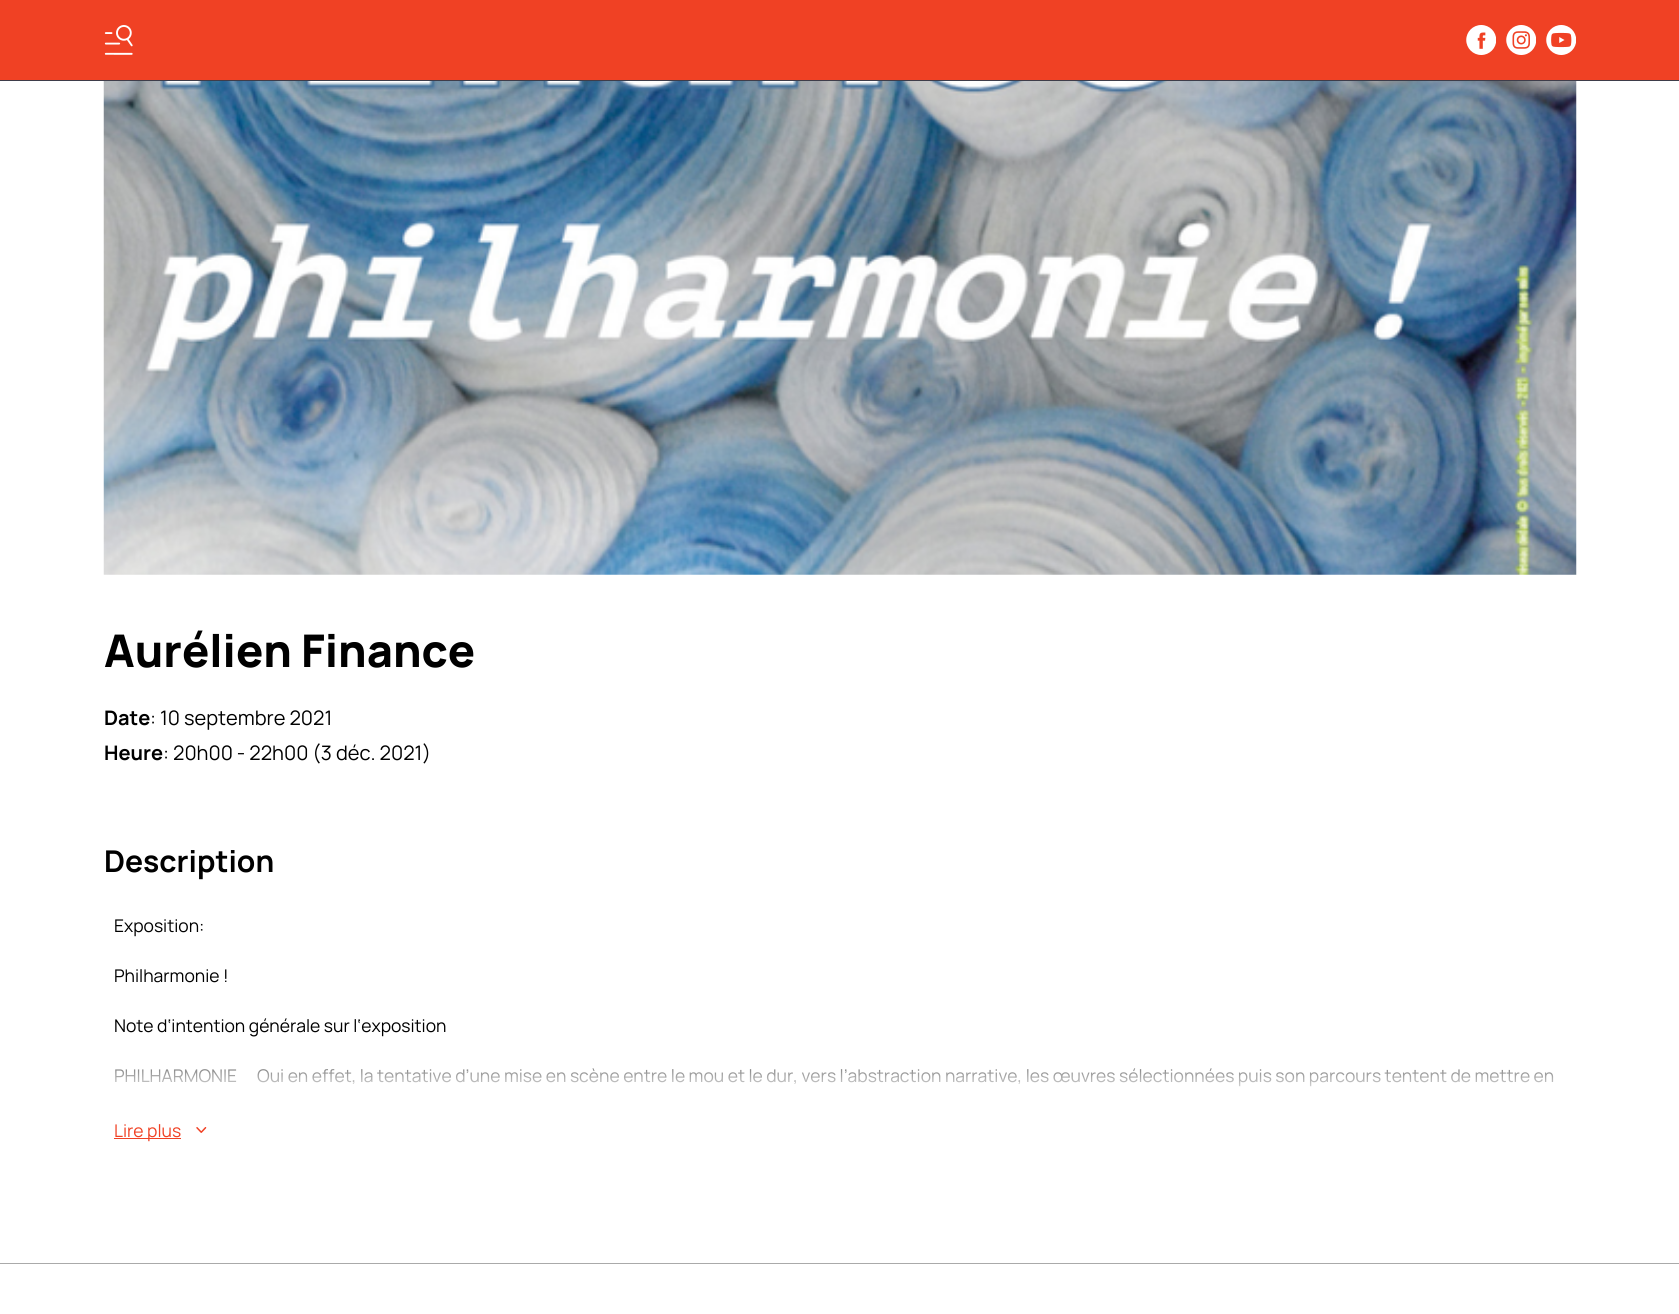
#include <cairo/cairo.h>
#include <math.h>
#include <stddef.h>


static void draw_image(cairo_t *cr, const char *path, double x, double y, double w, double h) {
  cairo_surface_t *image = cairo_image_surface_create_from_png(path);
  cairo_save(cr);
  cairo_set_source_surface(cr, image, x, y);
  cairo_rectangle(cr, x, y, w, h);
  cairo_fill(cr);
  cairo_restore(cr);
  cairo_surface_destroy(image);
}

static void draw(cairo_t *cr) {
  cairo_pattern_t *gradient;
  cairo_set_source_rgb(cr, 1, 1, 1);
  cairo_paint(cr);
  cairo_set_source_rgb(cr, 240 / 255.0, 65 / 255.0, 36 / 255.0);
  cairo_rectangle(cr, 0, 0, 1679, 80);
  cairo_fill(cr);
  cairo_set_source_rgb(cr, 62 / 255.0, 61 / 255.0, 74 / 255.0);
  cairo_rectangle(cr, 0, 80, 1679, 1);
  cairo_fill(cr);
  draw_image(cr, "images/1.png", 104, 25, 29, 30);
  draw_image(cr, "images/2.png", 1466, 25, 30, 30);
  draw_image(cr, "images/3.png", 1506, 25, 30, 30);
  draw_image(cr, "images/4.png", 1546, 25, 30, 30);
  draw_image(cr, "images/5.png", 103, 81, 1474, 494);
  cairo_set_source_rgb(cr, 240 / 255.0, 65 / 255.0, 36 / 255.0);
  cairo_rectangle(cr, 114, 1138, 67, 1);
  cairo_fill(cr);
  draw_image(cr, "images/6.png", 196, 1127, 11, 6);
  cairo_set_source_rgb(cr, 170 / 255.0, 170 / 255.0, 170 / 255.0);
  cairo_rectangle(cr, 0, 1263, 1679, 1);
  cairo_fill(cr);
  cairo_select_font_face(cr, "Manrope ExtraBold", CAIRO_FONT_SLANT_NORMAL, CAIRO_FONT_WEIGHT_NORMAL);
  cairo_set_font_size(cr, 45);
  cairo_set_source_rgb(cr, 0, 0, 0);
  cairo_move_to(cr, 104, 667);
  cairo_show_text(cr, "Aurélien Finance");
  cairo_select_font_face(cr, "Manrope", CAIRO_FONT_SLANT_NORMAL, CAIRO_FONT_WEIGHT_BOLD);
  cairo_set_font_size(cr, 20);
  cairo_move_to(cr, 104, 725);
  cairo_show_text(cr, "Date");
  cairo_select_font_face(cr, "Manrope", CAIRO_FONT_SLANT_NORMAL, CAIRO_FONT_WEIGHT_NORMAL);
  cairo_move_to(cr, 150, 725);
  cairo_show_text(cr, ": 10 septembre 2021");
  cairo_select_font_face(cr, "Manrope", CAIRO_FONT_SLANT_NORMAL, CAIRO_FONT_WEIGHT_BOLD);
  cairo_move_to(cr, 104, 760);
  cairo_show_text(cr, "Heure");
  cairo_select_font_face(cr, "Manrope", CAIRO_FONT_SLANT_NORMAL, CAIRO_FONT_WEIGHT_NORMAL);
  cairo_move_to(cr, 163, 760);
  cairo_show_text(cr, ": 20h00 - 22h00 (3 déc. 2021)");
  cairo_select_font_face(cr, "Manrope", CAIRO_FONT_SLANT_NORMAL, CAIRO_FONT_WEIGHT_BOLD);
  cairo_set_font_size(cr, 30);
  cairo_move_to(cr, 104, 872);
  cairo_show_text(cr, "Description");
  cairo_select_font_face(cr, "Manrope", CAIRO_FONT_SLANT_NORMAL, CAIRO_FONT_WEIGHT_NORMAL);
  cairo_set_font_size(cr, 17.5);
  cairo_move_to(cr, 114, 932);
  cairo_show_text(cr, "Exposition:");
  cairo_move_to(cr, 114, 982);
  cairo_show_text(cr, "Philharmonie !");
  cairo_move_to(cr, 114, 1032);
  cairo_show_text(cr, "Note d‘intention générale sur l‘exposition");
  cairo_move_to(cr, 114, 1082);
  cairo_show_text(cr, "PHILHARMONIE");
  cairo_move_to(cr, 257, 1082);
  cairo_show_text(cr, "Oui en effet, la tentative d’une mise en scène entre le mou et le dur, vers l’abstraction narrative, les œuvres sélectionnées puis son parcours tentent de mettre en");
  gradient = cairo_pattern_create_linear(845, 1098, 845, 1035);
  cairo_pattern_add_color_stop_rgba(gradient, 0, 1, 1, 1, 1);
  cairo_pattern_add_color_stop_rgba(gradient, 1, 1, 1, 1, 0);
  cairo_set_source(cr, gradient);
  cairo_pattern_destroy(gradient);
  cairo_rectangle(cr, 114, 1036, 1440, 51);
  cairo_fill(cr);
  cairo_set_source_rgb(cr, 240 / 255.0, 65 / 255.0, 36 / 255.0);
  cairo_move_to(cr, 114, 1137);
  cairo_show_text(cr, "Lire plus");
}

int main(void) {
  cairo_surface_t *surface = cairo_image_surface_create(CAIRO_FORMAT_RGB24, 1679, 1314);
  cairo_t *cr = cairo_create(surface);
  cairo_font_options_t *options = cairo_font_options_create();
  cairo_font_options_set_hint_metrics(options, CAIRO_HINT_METRICS_OFF);
  cairo_font_options_set_hint_style(options, CAIRO_HINT_STYLE_NONE);
  cairo_set_font_options(cr, options);
  cairo_set_miter_limit(cr, 4);
  draw(cr);
  cairo_surface_write_to_png(surface, "out.png");
  cairo_font_options_destroy(options);
  cairo_destroy(cr);
  cairo_surface_destroy(surface);
  return 0;
}
